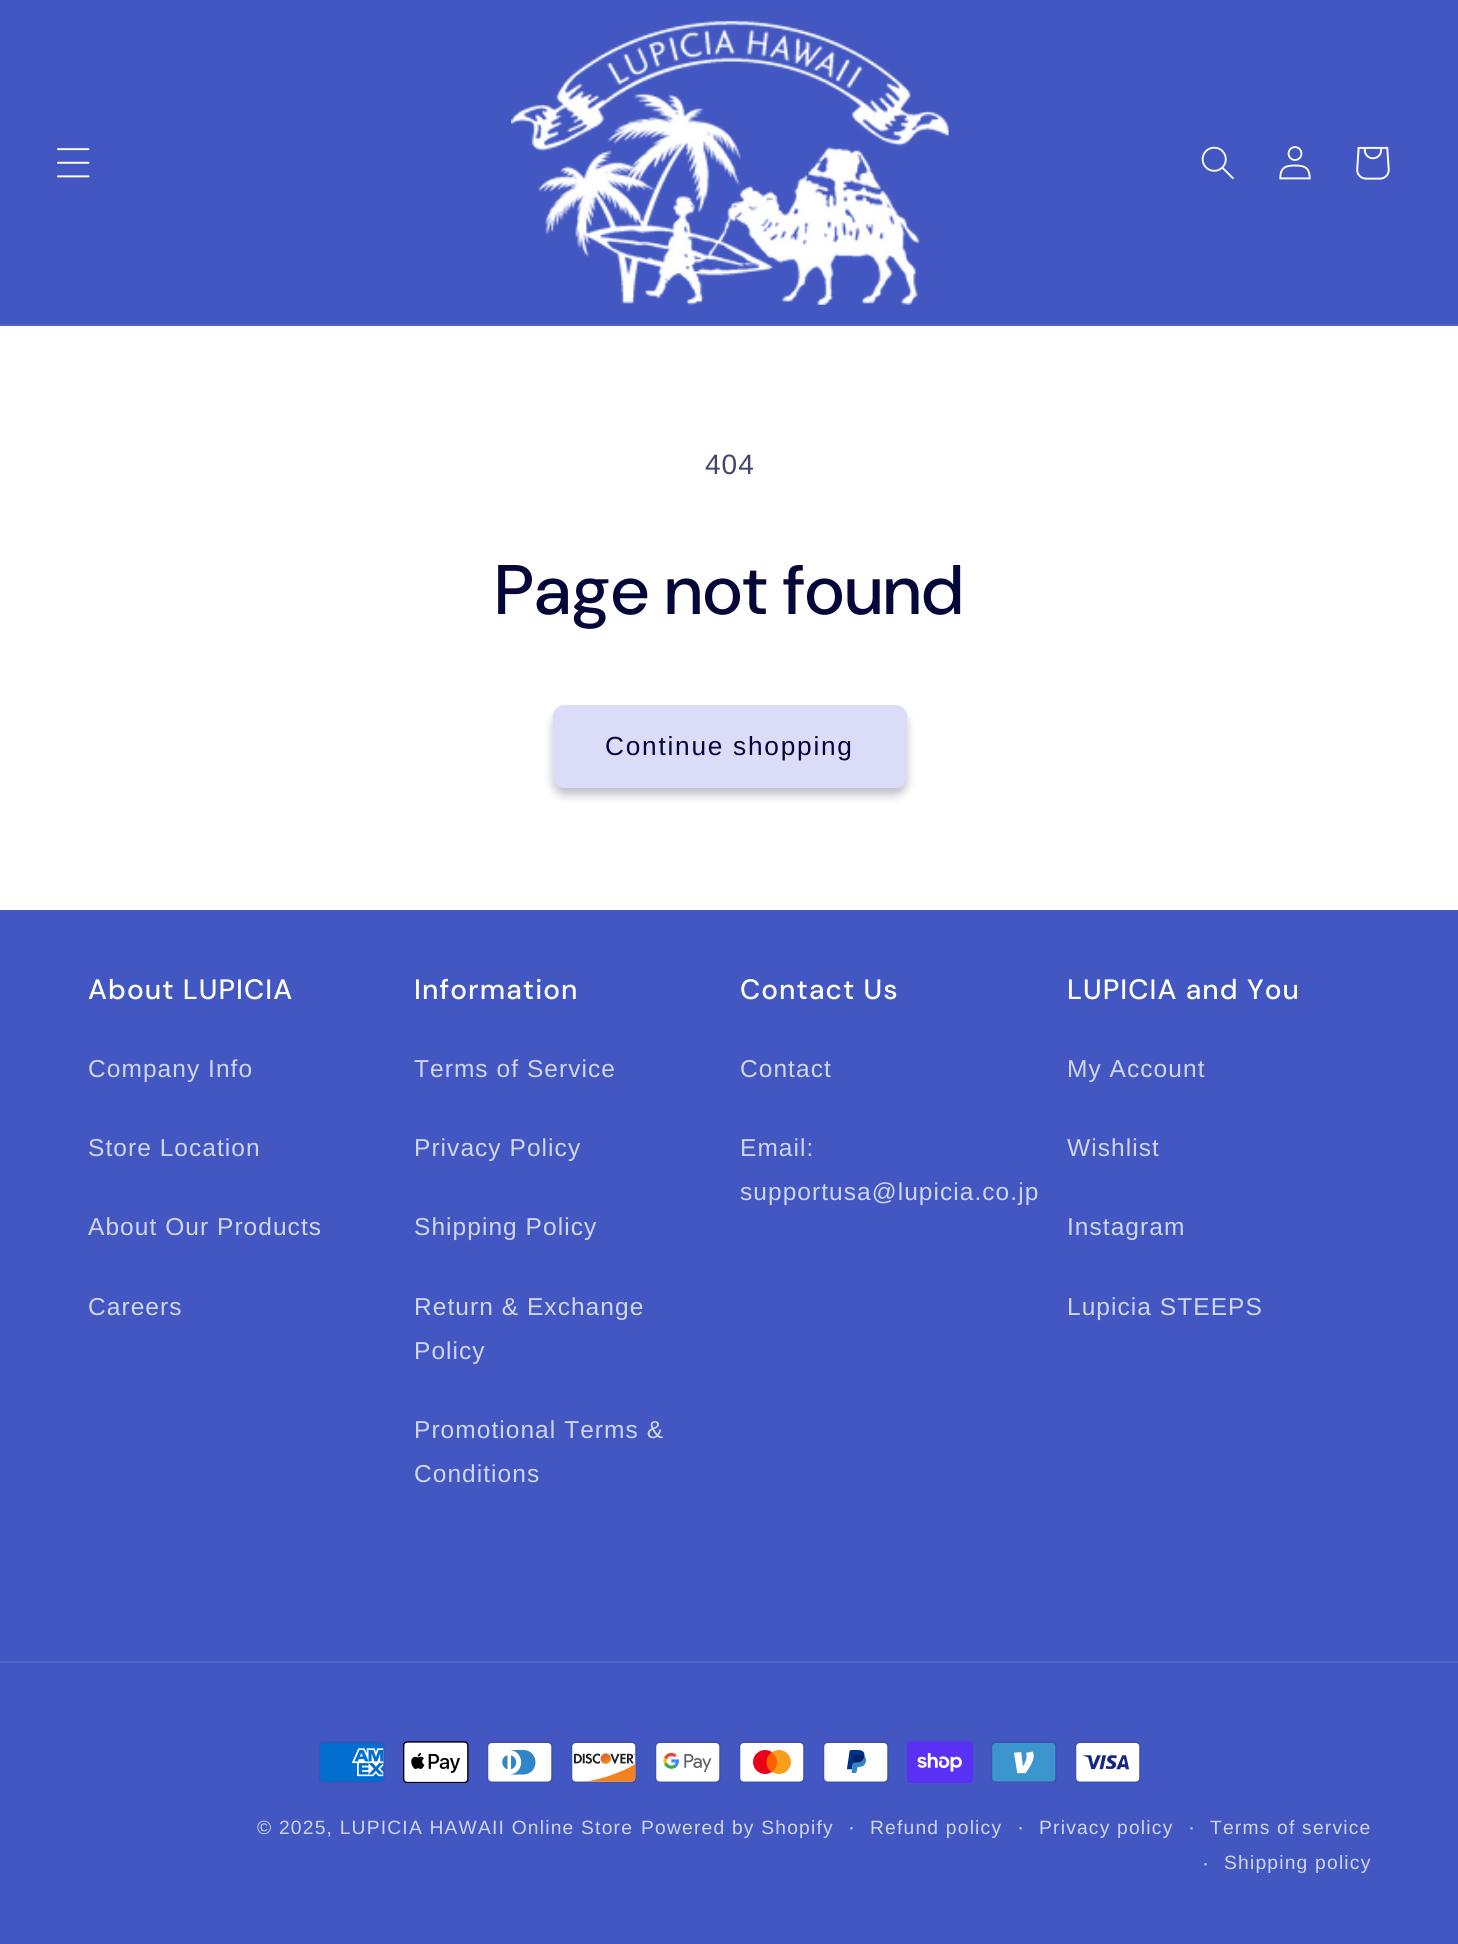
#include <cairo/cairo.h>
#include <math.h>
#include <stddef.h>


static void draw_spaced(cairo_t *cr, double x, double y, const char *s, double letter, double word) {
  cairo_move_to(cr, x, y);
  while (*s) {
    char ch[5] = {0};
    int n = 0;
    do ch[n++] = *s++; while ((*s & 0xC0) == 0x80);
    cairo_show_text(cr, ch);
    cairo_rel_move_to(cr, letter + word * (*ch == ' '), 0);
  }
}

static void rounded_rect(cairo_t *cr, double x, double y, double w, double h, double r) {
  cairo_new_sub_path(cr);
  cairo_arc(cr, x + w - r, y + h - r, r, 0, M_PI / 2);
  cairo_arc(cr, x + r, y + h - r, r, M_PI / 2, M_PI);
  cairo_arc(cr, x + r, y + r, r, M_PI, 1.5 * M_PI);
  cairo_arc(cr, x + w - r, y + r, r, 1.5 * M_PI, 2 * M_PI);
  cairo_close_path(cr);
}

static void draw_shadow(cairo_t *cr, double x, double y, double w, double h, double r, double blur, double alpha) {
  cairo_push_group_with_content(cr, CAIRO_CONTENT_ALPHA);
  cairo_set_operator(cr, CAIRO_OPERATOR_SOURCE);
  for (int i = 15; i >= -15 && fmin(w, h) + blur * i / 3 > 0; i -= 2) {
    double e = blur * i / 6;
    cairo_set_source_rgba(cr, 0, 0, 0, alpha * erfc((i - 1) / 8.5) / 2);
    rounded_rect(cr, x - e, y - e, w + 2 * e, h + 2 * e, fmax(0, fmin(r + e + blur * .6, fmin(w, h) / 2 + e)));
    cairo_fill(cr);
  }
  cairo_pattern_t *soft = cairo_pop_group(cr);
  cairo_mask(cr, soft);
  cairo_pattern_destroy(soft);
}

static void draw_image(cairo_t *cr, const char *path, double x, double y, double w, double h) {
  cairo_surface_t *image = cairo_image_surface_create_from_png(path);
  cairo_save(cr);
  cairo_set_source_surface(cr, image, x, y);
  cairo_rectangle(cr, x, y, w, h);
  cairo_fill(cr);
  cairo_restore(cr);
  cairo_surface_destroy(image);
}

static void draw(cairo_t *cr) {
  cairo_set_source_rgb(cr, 1, 1, 1);
  cairo_paint(cr);
  cairo_set_source_rgb(cr, 67 / 255.0, 87 / 255.0, 194 / 255.0);
  cairo_rectangle(cr, 0, 0, 1458, 324);
  cairo_fill(cr);
  cairo_set_source_rgb(cr, 82 / 255.0, 100 / 255.0, 199 / 255.0);
  cairo_rectangle(cr, 0, 324, 1458, 2);
  cairo_fill(cr);
  draw_image(cr, "images/1.png", 57, 148, 33, 30);
  draw_image(cr, "images/2.png", 511, 20, 438, 285);
  draw_image(cr, "images/3.png", 1201, 146, 33, 34);
  draw_image(cr, "images/4.png", 1279, 146, 32, 34);
  draw_image(cr, "images/5.png", 1356, 146, 34, 34);
  cairo_set_source_rgb(cr, 6 / 255.0, 7 / 255.0, 57 / 255.0);
  draw_shadow(cr, 553, 712, 354, 83, 12, 4.5, 0.25);
  cairo_set_source_rgb(cr, 219 / 255.0, 221 / 255.0, 248 / 255.0);
  rounded_rect(cr, 553, 705, 354, 83, 12);
  cairo_fill(cr);
  rounded_rect(cr, 554, 706, 352, 81, 11);
  cairo_stroke(cr);
  cairo_set_source_rgb(cr, 67 / 255.0, 87 / 255.0, 194 / 255.0);
  cairo_rectangle(cr, 0, 910, 1458, 1034);
  cairo_fill(cr);
  cairo_set_source_rgb(cr, 82 / 255.0, 100 / 255.0, 199 / 255.0);
  cairo_rectangle(cr, 0, 1661, 1458, 2);
  cairo_fill(cr);
  draw_image(cr, "images/6.png", 319, 1741, 66, 42);
  draw_image(cr, "images/7.png", 403, 1741, 66, 42);
  draw_image(cr, "images/8.png", 487, 1741, 66, 42);
  draw_image(cr, "images/9.png", 571, 1741, 66, 42);
  draw_image(cr, "images/10.png", 655, 1741, 66, 42);
  draw_image(cr, "images/11.png", 739, 1741, 66, 42);
  draw_image(cr, "images/12.png", 823, 1741, 66, 42);
  draw_image(cr, "images/13.png", 907, 1741, 66, 42);
  draw_image(cr, "images/14.png", 991, 1741, 66, 42);
  draw_image(cr, "images/15.png", 1075, 1741, 66, 42);
  cairo_select_font_face(cr, "Liberation Sans", CAIRO_FONT_SLANT_NORMAL, CAIRO_FONT_WEIGHT_NORMAL);
  cairo_set_font_size(cr, 28);
  cairo_set_source_rgb(cr, 68 / 255.0, 69 / 255.0, 107 / 255.0);
  draw_spaced(cr, 705, 474, "404", 1.05, 0);
  cairo_select_font_face(cr, "DM Sans Medium", CAIRO_FONT_SLANT_NORMAL, CAIRO_FONT_WEIGHT_NORMAL);
  cairo_set_font_size(cr, 70);
  cairo_set_source_rgb(cr, 6 / 255.0, 7 / 255.0, 57 / 255.0);
  draw_spaced(cr, 495, 614, "Page not found", 1.05, 0);
  cairo_select_font_face(cr, "Liberation Sans", CAIRO_FONT_SLANT_NORMAL, CAIRO_FONT_WEIGHT_NORMAL);
  cairo_set_font_size(cr, 26.25);
  draw_spaced(cr, 605, 755, "Continue shopping", 1.75, 0);
  cairo_select_font_face(cr, "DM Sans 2 Medium", CAIRO_FONT_SLANT_NORMAL, CAIRO_FONT_WEIGHT_NORMAL);
  cairo_set_font_size(cr, 28);
  cairo_set_source_rgb(cr, 1, 1, 1);
  draw_spaced(cr, 88, 999, "About LUPICIA", 1.05, 0);
  cairo_select_font_face(cr, "Liberation Sans", CAIRO_FONT_SLANT_NORMAL, CAIRO_FONT_WEIGHT_NORMAL);
  cairo_set_font_size(cr, 24.5);
  cairo_set_source_rgb(cr, 208 / 255.0, 213 / 255.0, 240 / 255.0);
  draw_spaced(cr, 88, 1077, "Company Info", 1.05, 0);
  draw_spaced(cr, 88, 1156, "Store Location", 1.05, 0);
  draw_spaced(cr, 88, 1235, "About Our Products", 1.05, 0);
  draw_spaced(cr, 88, 1315, "Careers", 1.05, 0);
  cairo_select_font_face(cr, "DM Sans 2 Medium", CAIRO_FONT_SLANT_NORMAL, CAIRO_FONT_WEIGHT_NORMAL);
  cairo_set_font_size(cr, 28);
  cairo_set_source_rgb(cr, 1, 1, 1);
  draw_spaced(cr, 414, 999, "Information", 1.05, 0);
  cairo_select_font_face(cr, "Liberation Sans", CAIRO_FONT_SLANT_NORMAL, CAIRO_FONT_WEIGHT_NORMAL);
  cairo_set_font_size(cr, 24.5);
  cairo_set_source_rgb(cr, 208 / 255.0, 213 / 255.0, 240 / 255.0);
  draw_spaced(cr, 414, 1077, "Terms of Service", 1.05, 0);
  draw_spaced(cr, 414, 1156, "Privacy Policy", 1.05, 0);
  draw_spaced(cr, 414, 1235, "Shipping Policy", 1.05, 0);
  draw_spaced(cr, 414, 1315, "Return & Exchange", 1.05, 0);
  draw_spaced(cr, 414, 1359, "Policy", 1.05, 0);
  draw_spaced(cr, 414, 1438, "Promotional Terms &", 1.05, 0);
  draw_spaced(cr, 414, 1482, "Conditions", 1.05, 0);
  cairo_select_font_face(cr, "DM Sans 2 Medium", CAIRO_FONT_SLANT_NORMAL, CAIRO_FONT_WEIGHT_NORMAL);
  cairo_set_font_size(cr, 28);
  cairo_set_source_rgb(cr, 1, 1, 1);
  draw_spaced(cr, 740, 999, "Contact Us", 1.05, 0);
  cairo_select_font_face(cr, "Liberation Sans", CAIRO_FONT_SLANT_NORMAL, CAIRO_FONT_WEIGHT_NORMAL);
  cairo_set_font_size(cr, 24.5);
  cairo_set_source_rgb(cr, 208 / 255.0, 213 / 255.0, 240 / 255.0);
  draw_spaced(cr, 740, 1077, "Contact", 1.05, 0);
  draw_spaced(cr, 740, 1156, "Email:", 1.05, 0);
  draw_spaced(cr, 740, 1200, "supportusa@lupicia.co.jp", 1.05, 0);
  cairo_select_font_face(cr, "DM Sans 2 Medium", CAIRO_FONT_SLANT_NORMAL, CAIRO_FONT_WEIGHT_NORMAL);
  cairo_set_font_size(cr, 28);
  cairo_set_source_rgb(cr, 1, 1, 1);
  draw_spaced(cr, 1067, 999, "LUPICIA and You", 1.05, 0);
  cairo_select_font_face(cr, "Liberation Sans", CAIRO_FONT_SLANT_NORMAL, CAIRO_FONT_WEIGHT_NORMAL);
  cairo_set_font_size(cr, 24.5);
  cairo_set_source_rgb(cr, 208 / 255.0, 213 / 255.0, 240 / 255.0);
  draw_spaced(cr, 1067, 1077, "My Account", 1.05, 0);
  draw_spaced(cr, 1067, 1156, "Wishlist", 1.05, 0);
  draw_spaced(cr, 1067, 1235, "Instagram", 1.05, 0);
  draw_spaced(cr, 1067, 1315, "Lupicia STEEPS", 1.05, 0);
  cairo_set_font_size(cr, 19.25);
  draw_spaced(cr, 257, 1834, "© 2025, LUPICIA HAWAII Online Store", 1.2, 0);
  draw_spaced(cr, 641, 1834, "Powered by Shopify", 1.2, 0);
  cairo_set_font_size(cr, 21);
  draw_spaced(cr, 848, 1834, "·", 1.2, 0);
  cairo_set_font_size(cr, 19.25);
  draw_spaced(cr, 870, 1834, "Refund policy", 1.2, 0);
  cairo_set_font_size(cr, 21);
  draw_spaced(cr, 1017, 1834, "·", 1.2, 0);
  cairo_set_font_size(cr, 19.25);
  draw_spaced(cr, 1039, 1834, "Privacy policy", 1.2, 0);
  cairo_set_font_size(cr, 21);
  draw_spaced(cr, 1188, 1834, "·", 1.2, 0);
  cairo_set_font_size(cr, 19.25);
  draw_spaced(cr, 1210, 1834, "Terms of service", 1.2, 0);
  cairo_set_font_size(cr, 21);
  draw_spaced(cr, 1202, 1870, "·", 1.2, 0);
  cairo_set_font_size(cr, 19.25);
  draw_spaced(cr, 1224, 1869, "Shipping policy", 1.2, 0);
}

int main(void) {
  cairo_surface_t *surface = cairo_image_surface_create(CAIRO_FORMAT_RGB24, 1458, 1944);
  cairo_t *cr = cairo_create(surface);
  cairo_font_options_t *options = cairo_font_options_create();
  cairo_font_options_set_hint_metrics(options, CAIRO_HINT_METRICS_OFF);
  cairo_font_options_set_hint_style(options, CAIRO_HINT_STYLE_NONE);
  cairo_set_font_options(cr, options);
  cairo_set_miter_limit(cr, 4);
  draw(cr);
  cairo_surface_write_to_png(surface, "out.png");
  cairo_font_options_destroy(options);
  cairo_destroy(cr);
  cairo_surface_destroy(surface);
  return 0;
}
